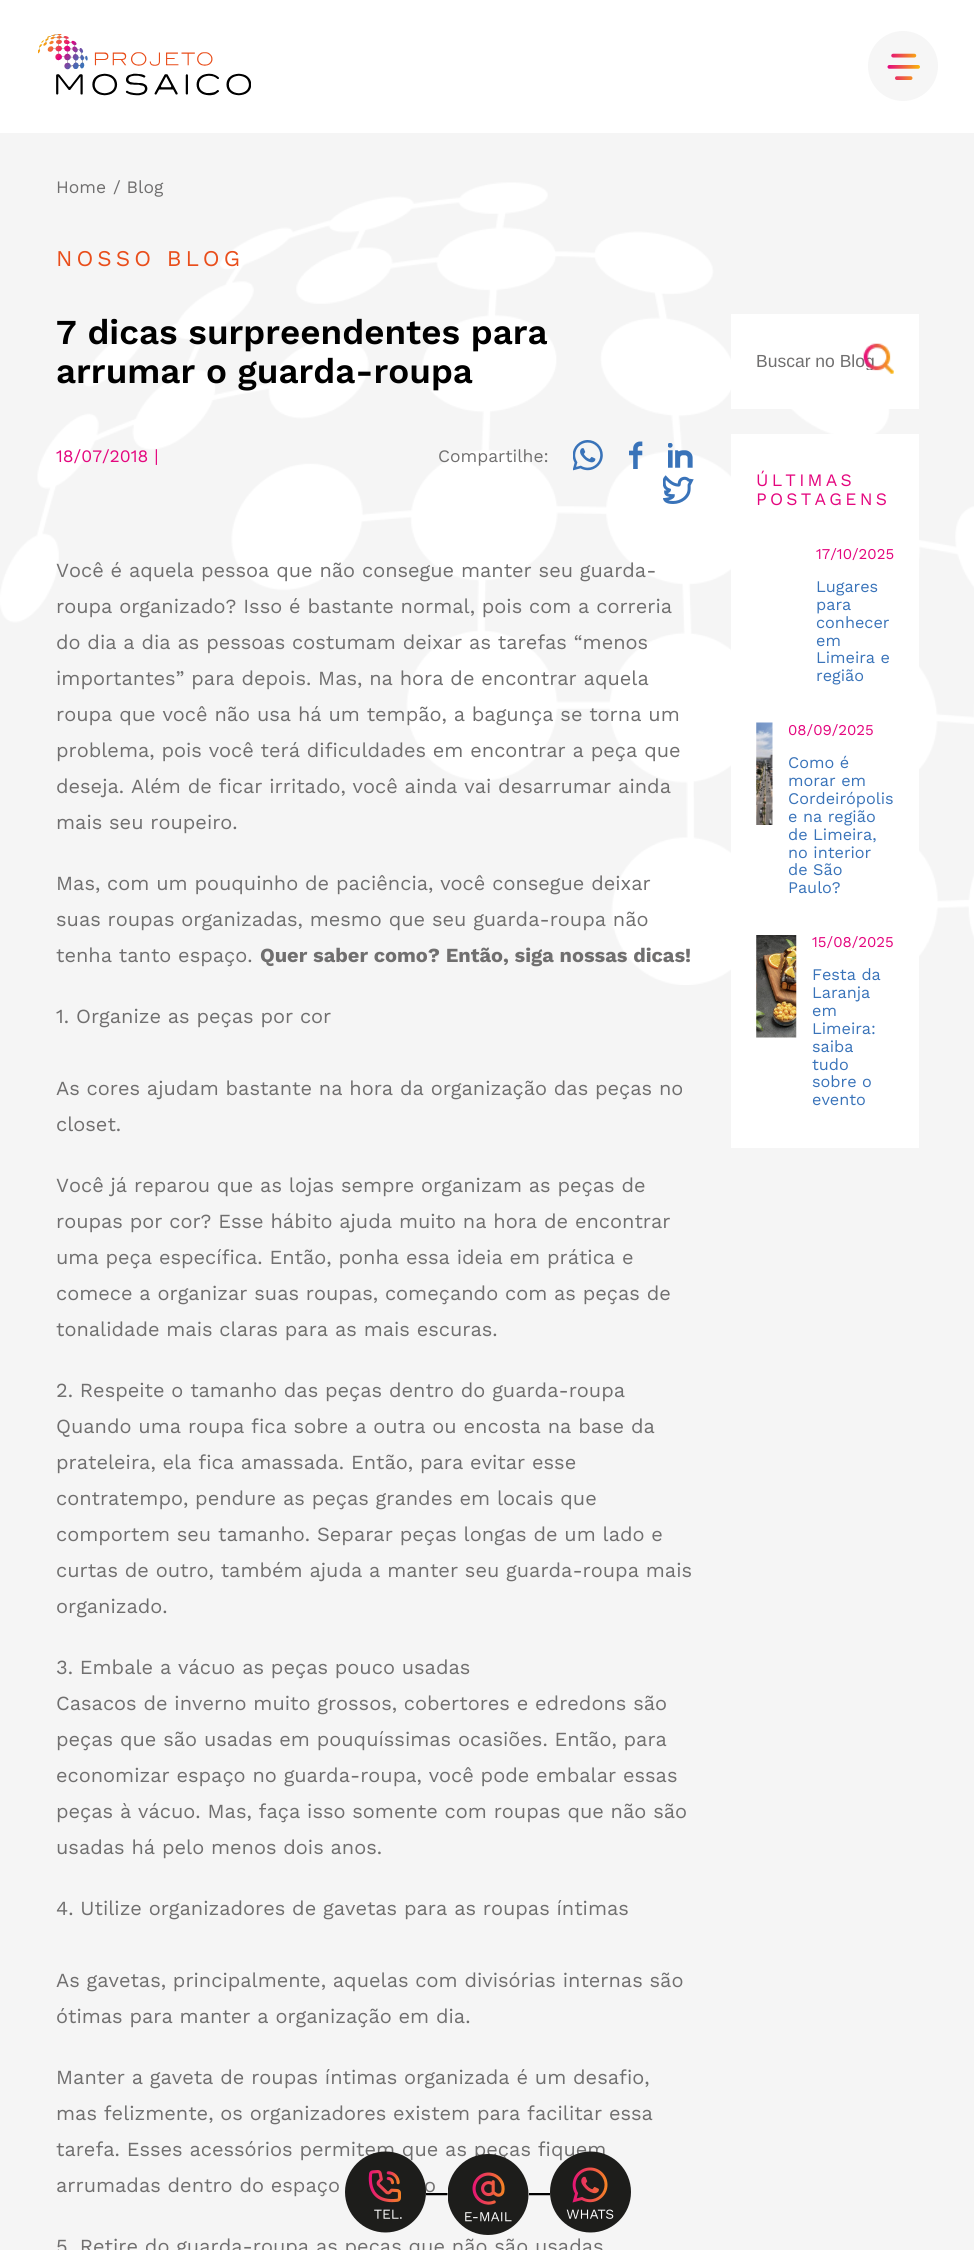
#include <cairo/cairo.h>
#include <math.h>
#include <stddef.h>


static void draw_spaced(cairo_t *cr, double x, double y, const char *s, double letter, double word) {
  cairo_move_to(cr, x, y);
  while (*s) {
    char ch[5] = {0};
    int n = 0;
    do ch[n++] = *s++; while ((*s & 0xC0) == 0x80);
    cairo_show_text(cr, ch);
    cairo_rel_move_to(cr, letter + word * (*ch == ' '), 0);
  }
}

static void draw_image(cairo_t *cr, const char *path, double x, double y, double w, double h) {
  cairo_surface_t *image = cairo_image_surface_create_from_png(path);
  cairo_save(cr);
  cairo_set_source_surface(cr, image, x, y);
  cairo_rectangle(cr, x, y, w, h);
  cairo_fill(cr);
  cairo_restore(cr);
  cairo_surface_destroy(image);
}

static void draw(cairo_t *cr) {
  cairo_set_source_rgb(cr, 1, 1, 1);
  cairo_paint(cr);
  draw_image(cr, "images/1.png", 38, 34, 213, 62);
  draw_image(cr, "images/2.png", 868, 31, 70, 70);
  cairo_set_source_rgb(cr, 245 / 255.0, 245 / 255.0, 245 / 255.0);
  cairo_rectangle(cr, 0, 133, 974, 2117);
  cairo_fill(cr);
  draw_image(cr, "images/3.png", 0, 182, 974, 803);
  draw_image(cr, "images/4.png", 573, 440, 30, 31);
  draw_image(cr, "images/5.png", 629, 441, 14, 28);
  draw_image(cr, "images/6.png", 668, 443, 25, 25);
  draw_image(cr, "images/7.png", 663, 475, 31, 29);
  cairo_set_source_rgb(cr, 1, 1, 1);
  cairo_rectangle(cr, 731, 314, 188, 95);
  cairo_fill(cr);
  cairo_rectangle(cr, 731, 434, 188, 714);
  cairo_fill(cr);
  draw_image(cr, "images/9.png", 756, 722, 17, 103);
  draw_image(cr, "images/10.png", 756, 935, 41, 103);
  cairo_save(cr);
  cairo_rectangle(cr, 426, 2193, 22, 3);
  cairo_clip(cr);
  cairo_new_path(cr);
  cairo_move_to(cr, 426, 2194);
  cairo_line_to(cr, 447.5, 2194);
  cairo_set_source_rgb(cr, 0, 0, 0);
  cairo_set_line_width(cr, 2.5);
  cairo_stroke(cr);
  cairo_restore(cr);
  cairo_save(cr);
  cairo_rectangle(cr, 529, 2193, 21, 3);
  cairo_clip(cr);
  cairo_new_path(cr);
  cairo_move_to(cr, 529, 2194);
  cairo_line_to(cr, 550, 2194);
  cairo_set_source_rgb(cr, 0, 0, 0);
  cairo_set_line_width(cr, 2.5);
  cairo_stroke(cr);
  cairo_restore(cr);
  cairo_select_font_face(cr, "Work Sans", CAIRO_FONT_SLANT_NORMAL, CAIRO_FONT_WEIGHT_NORMAL);
  cairo_set_font_size(cr, 17.5);
  cairo_set_source_rgb(cr, 112 / 255.0, 111 / 255.0, 111 / 255.0);
  cairo_move_to(cr, 56, 193);
  cairo_show_text(cr, "Home");
  cairo_move_to(cr, 113, 193);
  cairo_show_text(cr, "/ Blog");
  cairo_set_font_size(cr, 22.5);
  cairo_set_source_rgb(cr, 233 / 255.0, 78 / 255.0, 27 / 255.0);
  draw_spaced(cr, 56, 266, "NOSSO BLOG", 4, 0);
  cairo_select_font_face(cr, "Work Sans SemiBold", CAIRO_FONT_SLANT_NORMAL, CAIRO_FONT_WEIGHT_NORMAL);
  cairo_set_font_size(cr, 35);
  cairo_set_source_rgb(cr, 0, 0, 0);
  cairo_move_to(cr, 56, 344);
  cairo_show_text(cr, "7 dicas surpreendentes para");
  cairo_move_to(cr, 56, 383);
  cairo_show_text(cr, "arrumar o guarda-roupa");
  cairo_select_font_face(cr, "Work Sans", CAIRO_FONT_SLANT_NORMAL, CAIRO_FONT_WEIGHT_NORMAL);
  cairo_set_font_size(cr, 17.5);
  cairo_set_source_rgb(cr, 228 / 255.0, 6 / 255.0, 126 / 255.0);
  cairo_move_to(cr, 56, 462);
  cairo_show_text(cr, "18/07/2018 |");
  cairo_set_source_rgb(cr, 112 / 255.0, 111 / 255.0, 111 / 255.0);
  cairo_move_to(cr, 438, 462);
  cairo_show_text(cr, "Compartilhe:");
  cairo_set_font_size(cr, 20);
  cairo_move_to(cr, 56, 577);
  cairo_show_text(cr, "Você é aquela pessoa que não consegue manter seu guarda-");
  cairo_move_to(cr, 56, 613);
  cairo_show_text(cr, "roupa organizado? Isso é bastante normal, pois com a correria");
  cairo_move_to(cr, 56, 649);
  cairo_show_text(cr, "do dia a dia as pessoas costumam deixar as tarefas “menos");
  cairo_move_to(cr, 56, 685);
  cairo_show_text(cr, "importantes” para depois. Mas, na hora de encontrar aquela");
  cairo_move_to(cr, 56, 721);
  cairo_show_text(cr, "roupa que você não usa há um tempão, a bagunça se torna um");
  cairo_move_to(cr, 56, 757);
  cairo_show_text(cr, "problema, pois você terá dificuldades em encontrar a peça que");
  cairo_move_to(cr, 56, 793);
  cairo_show_text(cr, "deseja. Além de ficar irritado, você ainda vai desarrumar ainda");
  cairo_move_to(cr, 56, 829);
  cairo_show_text(cr, "mais seu roupeiro.");
  cairo_move_to(cr, 56, 890);
  cairo_show_text(cr, "Mas, com um pouquinho de paciência, você consegue deixar");
  cairo_move_to(cr, 56, 926);
  cairo_show_text(cr, "suas roupas organizadas, mesmo que seu guarda-roupa não");
  cairo_move_to(cr, 56, 962);
  cairo_show_text(cr, "tenha tanto espaço.");
  cairo_select_font_face(cr, "Work Sans", CAIRO_FONT_SLANT_NORMAL, CAIRO_FONT_WEIGHT_BOLD);
  cairo_move_to(cr, 260, 962);
  cairo_show_text(cr, "Quer saber como? Então, siga nossas dicas!");
  cairo_select_font_face(cr, "Work Sans", CAIRO_FONT_SLANT_NORMAL, CAIRO_FONT_WEIGHT_NORMAL);
  cairo_move_to(cr, 56, 1023);
  cairo_show_text(cr, "1. Organize as peças por cor");
  cairo_move_to(cr, 56, 1095);
  cairo_show_text(cr, "As cores ajudam bastante na hora da organização das peças no");
  cairo_move_to(cr, 56, 1131);
  cairo_show_text(cr, "closet.");
  cairo_move_to(cr, 56, 1192);
  cairo_show_text(cr, "Você já reparou que as lojas sempre organizam as peças de");
  cairo_move_to(cr, 56, 1228);
  cairo_show_text(cr, "roupas por cor? Esse hábito ajuda muito na hora de encontrar");
  cairo_move_to(cr, 56, 1264);
  cairo_show_text(cr, "uma peça específica. Então, ponha essa ideia em prática e");
  cairo_move_to(cr, 56, 1300);
  cairo_show_text(cr, "comece a organizar suas roupas, começando com as peças de");
  cairo_move_to(cr, 56, 1336);
  cairo_show_text(cr, "tonalidade mais claras para as mais escuras.");
  cairo_move_to(cr, 56, 1397);
  cairo_show_text(cr, "2. Respeite o tamanho das peças dentro do guarda-roupa");
  cairo_move_to(cr, 56, 1433);
  cairo_show_text(cr, "Quando uma roupa fica sobre a outra ou encosta na base da");
  cairo_move_to(cr, 56, 1469);
  cairo_show_text(cr, "prateleira, ela fica amassada. Então, para evitar esse");
  cairo_move_to(cr, 56, 1505);
  cairo_show_text(cr, "contratempo, pendure as peças grandes em locais que");
  cairo_move_to(cr, 56, 1541);
  cairo_show_text(cr, "comportem seu tamanho. Separar peças longas de um lado e");
  cairo_move_to(cr, 56, 1577);
  cairo_show_text(cr, "curtas de outro, também ajuda a manter seu guarda-roupa mais");
  cairo_move_to(cr, 56, 1613);
  cairo_show_text(cr, "organizado.");
  cairo_move_to(cr, 56, 1674);
  cairo_show_text(cr, "3. Embale a vácuo as peças pouco usadas");
  cairo_move_to(cr, 56, 1710);
  cairo_show_text(cr, "Casacos de inverno muito grossos, cobertores e edredons são");
  cairo_move_to(cr, 56, 1746);
  cairo_show_text(cr, "peças que são usadas em pouquíssimas ocasiões. Então, para");
  cairo_move_to(cr, 56, 1782);
  cairo_show_text(cr, "economizar espaço no guarda-roupa, você pode embalar essas");
  cairo_move_to(cr, 56, 1818);
  cairo_show_text(cr, "peças à vácuo. Mas, faça isso somente com roupas que não são");
  cairo_move_to(cr, 56, 1854);
  cairo_show_text(cr, "usadas há pelo menos dois anos.");
  cairo_move_to(cr, 56, 1915);
  cairo_show_text(cr, "4. Utilize organizadores de gavetas para as roupas íntimas");
  cairo_move_to(cr, 56, 1987);
  cairo_show_text(cr, "As gavetas, principalmente, aquelas com divisórias internas são");
  cairo_move_to(cr, 56, 2023);
  cairo_show_text(cr, "ótimas para manter a organização em dia.");
  cairo_move_to(cr, 56, 2084);
  cairo_show_text(cr, "Manter a gaveta de roupas íntimas organizada é um desafio,");
  cairo_move_to(cr, 56, 2120);
  cairo_show_text(cr, "mas felizmente, os organizadores existem para facilitar essa");
  cairo_move_to(cr, 56, 2156);
  cairo_show_text(cr, "tarefa. Esses acessórios permitem que as peças fiquem");
  cairo_move_to(cr, 56, 2192);
  cairo_show_text(cr, "arrumadas dentro do espaço");
  cairo_move_to(cr, 424, 2192);
  cairo_show_text(cr, "o");
  cairo_move_to(cr, 56, 2253);
  cairo_show_text(cr, "5. Retire do guarda-roupa as peças que não são usadas");
  cairo_save(cr);
  cairo_rectangle(cr, 756, 350, 138, 20);
  cairo_clip(cr);
  cairo_select_font_face(cr, "Liberation Sans", CAIRO_FONT_SLANT_NORMAL, CAIRO_FONT_WEIGHT_NORMAL);
  cairo_set_font_size(cr, 17.5);
  cairo_move_to(cr, 756, 367);
  cairo_show_text(cr, "Buscar no Blog");
  cairo_restore(cr);
  draw_image(cr, "images/8.png", 863, 343, 31, 31);
  cairo_set_font_size(cr, 17.5);
  cairo_set_source_rgb(cr, 228 / 255.0, 6 / 255.0, 126 / 255.0);
  draw_spaced(cr, 756, 486, "ÚLTIMAS", 3.25, 0);
  draw_spaced(cr, 756, 505, "POSTAGENS", 3.25, 0);
  cairo_set_font_size(cr, 15);
  cairo_move_to(cr, 816, 559);
  cairo_show_text(cr, "17/10/2025");
  cairo_set_font_size(cr, 16.25);
  cairo_set_source_rgb(cr, 57 / 255.0, 115 / 255.0, 185 / 255.0);
  cairo_move_to(cr, 816, 592);
  cairo_show_text(cr, "Lugares");
  cairo_move_to(cr, 816, 610);
  cairo_show_text(cr, "para");
  cairo_move_to(cr, 816, 628);
  cairo_show_text(cr, "conhecer");
  cairo_move_to(cr, 816, 646);
  cairo_show_text(cr, "em");
  cairo_move_to(cr, 816, 663);
  cairo_show_text(cr, "Limeira e");
  cairo_move_to(cr, 816, 681);
  cairo_show_text(cr, "região");
  cairo_set_font_size(cr, 15);
  cairo_set_source_rgb(cr, 228 / 255.0, 6 / 255.0, 126 / 255.0);
  cairo_move_to(cr, 788, 735);
  cairo_show_text(cr, "08/09/2025");
  cairo_set_font_size(cr, 16.25);
  cairo_set_source_rgb(cr, 57 / 255.0, 115 / 255.0, 185 / 255.0);
  cairo_move_to(cr, 788, 768);
  cairo_show_text(cr, "Como é");
  cairo_move_to(cr, 788, 786);
  cairo_show_text(cr, "morar em");
  cairo_move_to(cr, 788, 804);
  cairo_show_text(cr, "Cordeirópolis");
  cairo_move_to(cr, 788, 822);
  cairo_show_text(cr, "e na região");
  cairo_move_to(cr, 788, 840);
  cairo_show_text(cr, "de Limeira,");
  cairo_move_to(cr, 788, 858);
  cairo_show_text(cr, "no interior");
  cairo_move_to(cr, 788, 875);
  cairo_show_text(cr, "de São");
  cairo_move_to(cr, 788, 893);
  cairo_show_text(cr, "Paulo?");
  cairo_set_font_size(cr, 15);
  cairo_set_source_rgb(cr, 228 / 255.0, 6 / 255.0, 126 / 255.0);
  cairo_move_to(cr, 812, 947);
  cairo_show_text(cr, "15/08/2025");
  cairo_set_font_size(cr, 16.25);
  cairo_set_source_rgb(cr, 57 / 255.0, 115 / 255.0, 185 / 255.0);
  cairo_move_to(cr, 812, 980);
  cairo_show_text(cr, "Festa da");
  cairo_move_to(cr, 812, 998);
  cairo_show_text(cr, "Laranja");
  cairo_move_to(cr, 812, 1016);
  cairo_show_text(cr, "em");
  cairo_move_to(cr, 812, 1034);
  cairo_show_text(cr, "Limeira:");
  cairo_move_to(cr, 812, 1052);
  cairo_show_text(cr, "saiba");
  cairo_move_to(cr, 812, 1070);
  cairo_show_text(cr, "tudo");
  cairo_move_to(cr, 812, 1087);
  cairo_show_text(cr, "sobre o");
  cairo_move_to(cr, 812, 1105);
  cairo_show_text(cr, "evento");
  draw_image(cr, "images/11.png", 345, 2151, 81, 82);
  draw_image(cr, "images/12.png", 448, 2154, 81, 81);
  draw_image(cr, "images/13.png", 550, 2151, 81, 82);
}

int main(void) {
  cairo_surface_t *surface = cairo_image_surface_create(CAIRO_FORMAT_RGB24, 974, 2250);
  cairo_t *cr = cairo_create(surface);
  cairo_font_options_t *options = cairo_font_options_create();
  cairo_font_options_set_hint_metrics(options, CAIRO_HINT_METRICS_OFF);
  cairo_font_options_set_hint_style(options, CAIRO_HINT_STYLE_NONE);
  cairo_set_font_options(cr, options);
  cairo_set_miter_limit(cr, 4);
  draw(cr);
  cairo_surface_write_to_png(surface, "out.png");
  cairo_font_options_destroy(options);
  cairo_destroy(cr);
  cairo_surface_destroy(surface);
  return 0;
}
